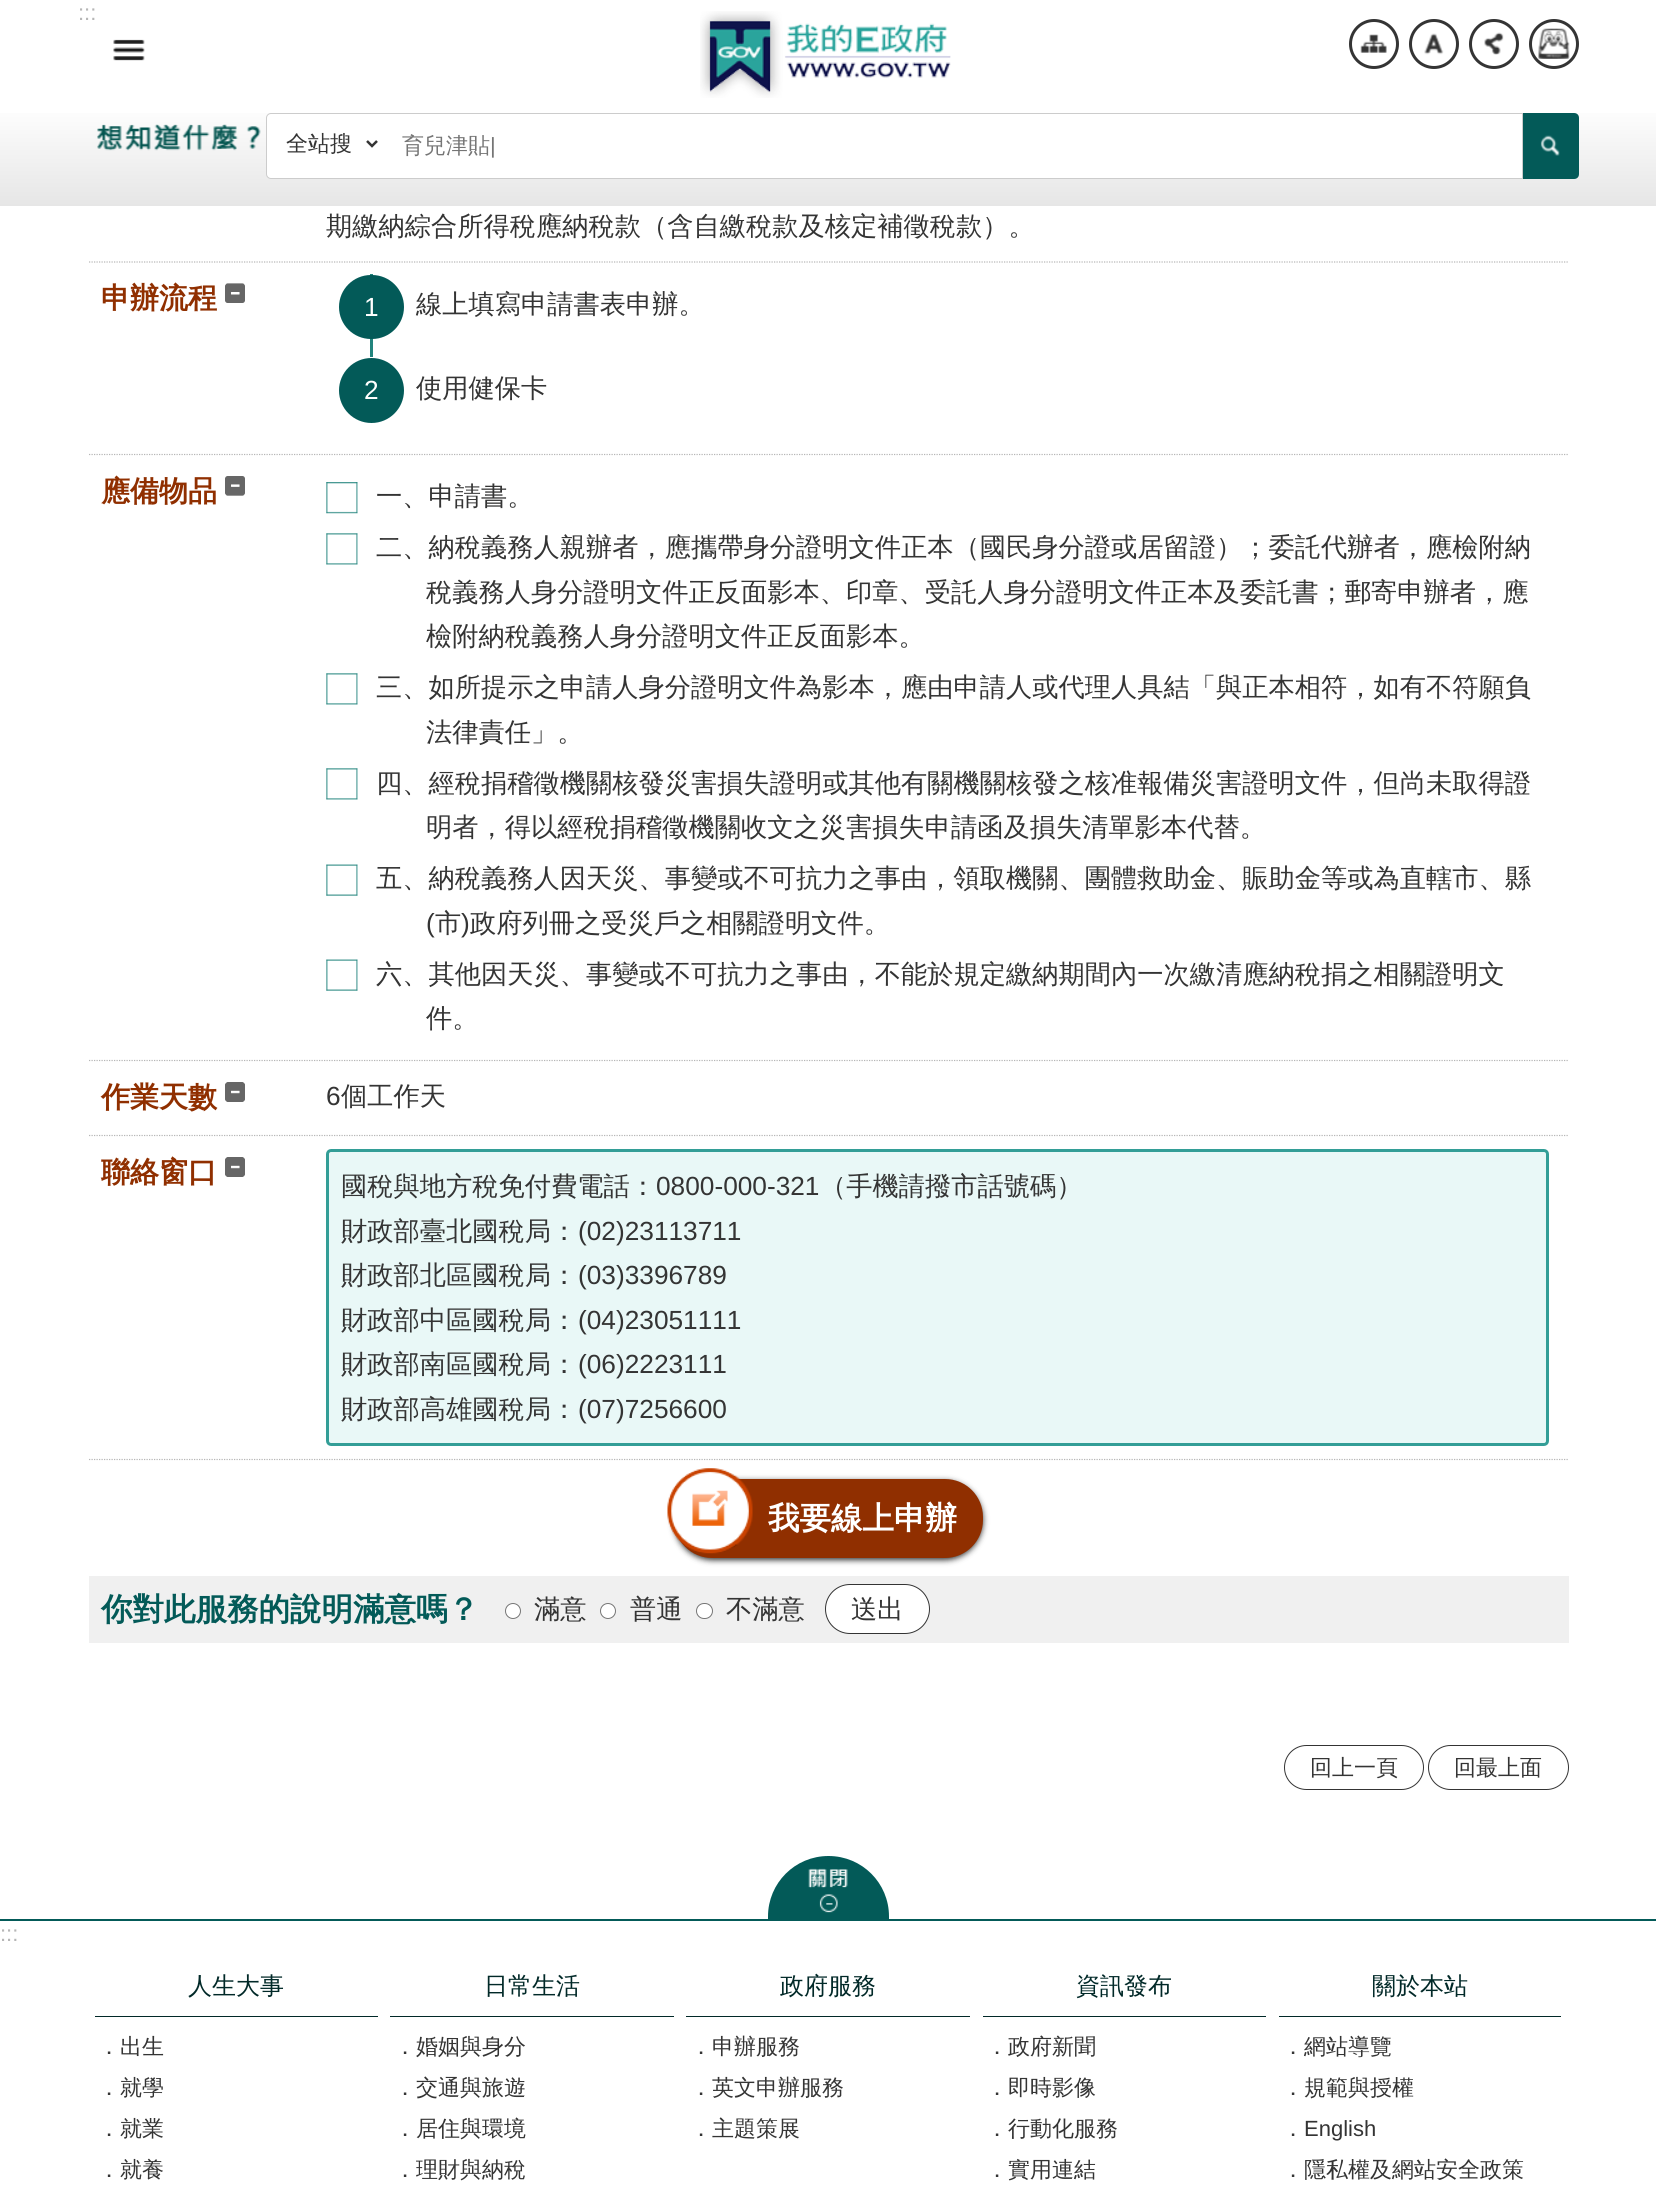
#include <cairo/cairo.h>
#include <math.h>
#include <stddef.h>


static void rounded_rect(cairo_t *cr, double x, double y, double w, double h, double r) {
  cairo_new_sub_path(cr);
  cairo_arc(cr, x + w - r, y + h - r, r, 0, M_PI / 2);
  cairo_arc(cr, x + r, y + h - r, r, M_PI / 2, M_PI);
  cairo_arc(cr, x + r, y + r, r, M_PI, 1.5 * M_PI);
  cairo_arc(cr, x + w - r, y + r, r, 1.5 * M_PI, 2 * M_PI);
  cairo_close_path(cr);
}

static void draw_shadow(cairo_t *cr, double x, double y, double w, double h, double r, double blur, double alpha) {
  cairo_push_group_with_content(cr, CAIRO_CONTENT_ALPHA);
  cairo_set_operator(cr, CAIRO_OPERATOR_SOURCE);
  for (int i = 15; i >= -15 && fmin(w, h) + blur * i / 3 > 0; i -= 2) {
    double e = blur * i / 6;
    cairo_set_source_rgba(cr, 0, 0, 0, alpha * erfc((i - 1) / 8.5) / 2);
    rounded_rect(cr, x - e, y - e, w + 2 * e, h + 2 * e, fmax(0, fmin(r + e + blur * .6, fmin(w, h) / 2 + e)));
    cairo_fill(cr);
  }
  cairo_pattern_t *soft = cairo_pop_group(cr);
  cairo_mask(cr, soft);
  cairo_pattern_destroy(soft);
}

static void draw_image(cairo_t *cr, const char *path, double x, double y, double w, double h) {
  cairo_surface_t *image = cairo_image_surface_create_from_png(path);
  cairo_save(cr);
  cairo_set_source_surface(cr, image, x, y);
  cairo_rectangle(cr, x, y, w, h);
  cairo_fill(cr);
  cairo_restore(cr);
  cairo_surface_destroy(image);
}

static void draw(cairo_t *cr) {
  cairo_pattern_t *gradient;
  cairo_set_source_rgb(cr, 1, 1, 1);
  cairo_paint(cr);
  gradient = cairo_pattern_create_linear(828, 0, 828, 206);
  cairo_pattern_add_color_stop_rgba(gradient, 0, 1, 1, 1, 1);
  cairo_pattern_add_color_stop_rgba(gradient, 0.5, 1, 1, 1, 1);
  cairo_pattern_add_color_stop_rgba(gradient, 1, 230 / 255.0, 230 / 255.0, 230 / 255.0, 1);
  cairo_set_source(cr, gradient);
  cairo_pattern_destroy(gradient);
  cairo_rectangle(cr, 0, 113, 1656, 93);
  cairo_fill(cr);
  draw_image(cr, "images/1.png", 113, 39, 32, 22);
  draw_image(cr, "images/2.png", 700, 11, 251, 87);
  draw_image(cr, "images/3.png", 1360, 34, 27, 19);
  cairo_arc(cr, 1374, 44, 23.5, 0, 2 * M_PI);
  cairo_set_source_rgb(cr, 52 / 255.0, 52 / 255.0, 52 / 255.0);
  cairo_set_line_width(cr, 3);
  cairo_stroke(cr);
  draw_image(cr, "images/4.png", 1424, 33, 20, 22);
  cairo_arc(cr, 1434, 44, 23.5, 0, 2 * M_PI);
  cairo_stroke(cr);
  draw_image(cr, "images/5.png", 1484, 32, 20, 23);
  cairo_arc(cr, 1494, 44, 23.5, 0, 2 * M_PI);
  cairo_stroke(cr);
  draw_image(cr, "images/6.png", 1538, 28, 32, 31);
  cairo_arc(cr, 1554, 44, 23.5, 0, 2 * M_PI);
  cairo_stroke(cr);
  draw_image(cr, "images/7.png", 97, 124, 164, 27);
  cairo_set_source_rgb(cr, 1, 1, 1);
  cairo_new_path(cr);
  cairo_move_to(cr, 271, 113.5);
  cairo_line_to(cr, 1522.5, 113.5);
  cairo_line_to(cr, 1522.5, 178.5);
  cairo_line_to(cr, 271, 178.5);
  cairo_curve_to(cr, 268.5, 178.5, 266.5, 176.5, 266.5, 174);
  cairo_line_to(cr, 266.5, 118);
  cairo_curve_to(cr, 266.5, 115.5, 268.5, 113.5, 271, 113.5);
  cairo_close_path(cr);
  cairo_fill_preserve(cr);
  cairo_set_source_rgb(cr, 204 / 255.0, 204 / 255.0, 204 / 255.0);
  cairo_set_line_width(cr, 1);
  cairo_stroke(cr);
  cairo_new_path(cr);
  cairo_move_to(cr, 367, 141);
  cairo_line_to(cr, 372, 146);
  cairo_line_to(cr, 377, 141);
  cairo_set_source_rgb(cr, 52 / 255.0, 52 / 255.0, 52 / 255.0);
  cairo_set_line_width(cr, 2.5);
  cairo_stroke(cr);
  cairo_set_source_rgb(cr, 3 / 255.0, 90 / 255.0, 88 / 255.0);
  cairo_new_path(cr);
  cairo_move_to(cr, 1523, 113);
  cairo_line_to(cr, 1574, 113);
  cairo_curve_to(cr, 1577, 113, 1579, 115, 1579, 118);
  cairo_line_to(cr, 1579, 174);
  cairo_curve_to(cr, 1579, 177, 1577, 179, 1574, 179);
  cairo_line_to(cr, 1523, 179);
  cairo_close_path(cr);
  cairo_fill(cr);
  draw_image(cr, "images/8.png", 1540, 135, 20, 21);
  cairo_new_path(cr);
  cairo_move_to(cr, 89, 262);
  cairo_line_to(cr, 1569, 262);
  cairo_set_source_rgb(cr, 182 / 255.0, 182 / 255.0, 182 / 255.0);
  cairo_set_line_width(cr, 1.2);
  cairo_set_dash(cr, (double[]){1.25, 1.25}, 2, 0);
  cairo_stroke(cr);
  cairo_new_path(cr);
  cairo_move_to(cr, 89, 454.5);
  cairo_line_to(cr, 1569, 454.5);
  cairo_stroke(cr);
  draw_image(cr, "images/9.png", 225, 283, 20, 20);
  cairo_set_source_rgb(cr, 34 / 255.0, 132 / 255.0, 125 / 255.0);
  cairo_rectangle(cr, 370, 274, 3, 83);
  cairo_fill(cr);
  cairo_set_source_rgb(cr, 3 / 255.0, 90 / 255.0, 88 / 255.0);
  rounded_rect(cr, 339, 275, 65, 64, 32);
  cairo_fill(cr);
  cairo_arc(cr, 371.5, 390.5, 32.5, 0, 2 * M_PI);
  cairo_fill(cr);
  cairo_new_path(cr);
  cairo_move_to(cr, 89, 1060.5);
  cairo_line_to(cr, 1569, 1060.5);
  cairo_set_source_rgb(cr, 182 / 255.0, 182 / 255.0, 182 / 255.0);
  cairo_stroke(cr);
  draw_image(cr, "images/10.png", 225, 476, 20, 20);
  draw_image(cr, "images/11.png", 326, 482, 32, 32);
  draw_image(cr, "images/12.png", 326, 533, 32, 32);
  draw_image(cr, "images/12.png", 326, 673, 32, 32);
  draw_image(cr, "images/12.png", 326, 768, 32, 32);
  draw_image(cr, "images/13.png", 326, 864, 32, 32);
  draw_image(cr, "images/13.png", 326, 959, 32, 32);
  cairo_new_path(cr);
  cairo_move_to(cr, 89, 1135.5);
  cairo_line_to(cr, 1569, 1135.5);
  cairo_stroke(cr);
  draw_image(cr, "images/14.png", 225, 1082, 20, 20);
  cairo_new_path(cr);
  cairo_move_to(cr, 89, 1459.5);
  cairo_line_to(cr, 1569, 1459.5);
  cairo_stroke(cr);
  draw_image(cr, "images/14.png", 225, 1157, 20, 20);
  cairo_set_source_rgb(cr, 233 / 255.0, 248 / 255.0, 247 / 255.0);
  rounded_rect(cr, 327.5, 1150.5, 1220, 294, 3.5);
  cairo_fill_preserve(cr);
  cairo_set_source_rgb(cr, 51 / 255.0, 158 / 255.0, 151 / 255.0);
  cairo_set_line_width(cr, 3);
  cairo_set_dash(cr, NULL, 0, 0);
  cairo_stroke(cr);
  cairo_set_source_rgb(cr, 51 / 255.0, 51 / 255.0, 51 / 255.0);
  draw_shadow(cr, 674, 1481, 309, 79, 38, 3, 1);
  cairo_set_source_rgb(cr, 144 / 255.0, 47 / 255.0, 0);
  rounded_rect(cr, 674, 1479, 309, 79, 38);
  cairo_fill(cr);
  draw_image(cr, "images/15.png", 667, 1468, 86, 86);
  cairo_set_source_rgb(cr, 240 / 255.0, 240 / 255.0, 240 / 255.0);
  cairo_rectangle(cr, 89, 1576, 1480, 67);
  cairo_fill(cr);
  cairo_set_source_rgb(cr, 1, 1, 1);
  cairo_arc(cr, 513, 1611, 7.5, 0, 2 * M_PI);
  cairo_fill_preserve(cr);
  cairo_set_source_rgb(cr, 118 / 255.0, 118 / 255.0, 118 / 255.0);
  cairo_set_line_width(cr, 1);
  cairo_stroke(cr);
  cairo_set_source_rgb(cr, 1, 1, 1);
  cairo_arc(cr, 608, 1611, 7.5, 0, 2 * M_PI);
  cairo_fill_preserve(cr);
  cairo_set_source_rgb(cr, 118 / 255.0, 118 / 255.0, 118 / 255.0);
  cairo_stroke(cr);
  cairo_set_source_rgb(cr, 1, 1, 1);
  rounded_rect(cr, 696.5, 1603.5, 16, 15, 7.5);
  cairo_fill_preserve(cr);
  cairo_set_source_rgb(cr, 118 / 255.0, 118 / 255.0, 118 / 255.0);
  cairo_stroke(cr);
  cairo_set_source_rgb(cr, 1, 1, 1);
  rounded_rect(cr, 825.5, 1584.5, 104, 49, 24.5);
  cairo_fill_preserve(cr);
  cairo_set_source_rgb(cr, 52 / 255.0, 52 / 255.0, 52 / 255.0);
  cairo_stroke(cr);
  rounded_rect(cr, 1284.5, 1745.5, 139, 44, 22);
  cairo_stroke(cr);
  rounded_rect(cr, 1428.5, 1745.5, 140, 44, 22);
  cairo_stroke(cr);
  cairo_set_source_rgb(cr, 3 / 255.0, 90 / 255.0, 88 / 255.0);
  cairo_rectangle(cr, 0, 1919, 1656, 2);
  cairo_fill(cr);
  cairo_new_path(cr);
  cairo_move_to(cr, 828.5, 1856);
  cairo_curve_to(cr, 862, 1856, 889, 1883, 889, 1916.5);
  cairo_line_to(cr, 889, 1919);
  cairo_line_to(cr, 768, 1919);
  cairo_line_to(cr, 768, 1916.5);
  cairo_curve_to(cr, 768, 1883, 795, 1856, 828.5, 1856);
  cairo_close_path(cr);
  cairo_fill(cr);
  draw_image(cr, "images/16.png", 808, 1868, 40, 45);
  cairo_set_source_rgb(cr, 1 / 255.0, 41 / 255.0, 40 / 255.0);
  cairo_rectangle(cr, 95, 2016, 283, 1);
  cairo_fill(cr);
  cairo_rectangle(cr, 390, 2016, 284, 1);
  cairo_fill(cr);
  cairo_rectangle(cr, 686, 2016, 284, 1);
  cairo_fill(cr);
  cairo_rectangle(cr, 983, 2016, 283, 1);
  cairo_fill(cr);
  cairo_rectangle(cr, 1279, 2016, 282, 1);
  cairo_fill(cr);
  cairo_select_font_face(cr, "Liberation Sans", CAIRO_FONT_SLANT_NORMAL, CAIRO_FONT_WEIGHT_NORMAL);
  cairo_set_font_size(cr, 22);
  cairo_set_source_rgb(cr, 182 / 255.0, 182 / 255.0, 182 / 255.0);
  cairo_move_to(cr, 78, 20);
  cairo_show_text(cr, ":::");
  cairo_select_font_face(cr, "WenQuanYi Zen Hei Medium", CAIRO_FONT_SLANT_NORMAL, CAIRO_FONT_WEIGHT_NORMAL);
  cairo_set_source_rgb(cr, 52 / 255.0, 52 / 255.0, 52 / 255.0);
  cairo_move_to(cr, 286, 151);
  cairo_show_text(cr, "全站搜");
  cairo_set_source_rgb(cr, 117 / 255.0, 117 / 255.0, 117 / 255.0);
  cairo_move_to(cr, 402, 153);
  cairo_show_text(cr, "育兒津貼");
  cairo_select_font_face(cr, "Liberation Sans", CAIRO_FONT_SLANT_NORMAL, CAIRO_FONT_WEIGHT_NORMAL);
  cairo_move_to(cr, 490, 153);
  cairo_show_text(cr, "|");
  cairo_select_font_face(cr, "WenQuanYi Zen Hei Medium", CAIRO_FONT_SLANT_NORMAL, CAIRO_FONT_WEIGHT_NORMAL);
  cairo_set_font_size(cr, 26.25);
  cairo_set_source_rgb(cr, 52 / 255.0, 52 / 255.0, 52 / 255.0);
  cairo_move_to(cr, 326, 235);
  cairo_show_text(cr, "期繳納綜合所得稅應納稅款（含自繳稅款及核定補徵稅款）。");
  cairo_select_font_face(cr, "WenQuanYi Zen Hei", CAIRO_FONT_SLANT_NORMAL, CAIRO_FONT_WEIGHT_BOLD);
  cairo_set_font_size(cr, 29);
  cairo_set_source_rgb(cr, 144 / 255.0, 47 / 255.0, 0);
  cairo_move_to(cr, 101, 308);
  cairo_show_text(cr, "申辦流程");
  cairo_select_font_face(cr, "Liberation Sans", CAIRO_FONT_SLANT_NORMAL, CAIRO_FONT_WEIGHT_NORMAL);
  cairo_set_font_size(cr, 26.25);
  cairo_set_source_rgb(cr, 1, 1, 1);
  cairo_move_to(cr, 364, 316);
  cairo_show_text(cr, "1");
  cairo_select_font_face(cr, "WenQuanYi Zen Hei Medium", CAIRO_FONT_SLANT_NORMAL, CAIRO_FONT_WEIGHT_NORMAL);
  cairo_set_source_rgb(cr, 52 / 255.0, 52 / 255.0, 52 / 255.0);
  cairo_move_to(cr, 416, 313);
  cairo_show_text(cr, "線上填寫申請書表申辦。");
  cairo_select_font_face(cr, "Liberation Sans", CAIRO_FONT_SLANT_NORMAL, CAIRO_FONT_WEIGHT_NORMAL);
  cairo_set_source_rgb(cr, 1, 1, 1);
  cairo_move_to(cr, 364, 399);
  cairo_show_text(cr, "2");
  cairo_select_font_face(cr, "WenQuanYi Zen Hei Medium", CAIRO_FONT_SLANT_NORMAL, CAIRO_FONT_WEIGHT_NORMAL);
  cairo_set_source_rgb(cr, 52 / 255.0, 52 / 255.0, 52 / 255.0);
  cairo_move_to(cr, 416, 397);
  cairo_show_text(cr, "使用健保卡");
  cairo_select_font_face(cr, "WenQuanYi Zen Hei", CAIRO_FONT_SLANT_NORMAL, CAIRO_FONT_WEIGHT_BOLD);
  cairo_set_font_size(cr, 29);
  cairo_set_source_rgb(cr, 144 / 255.0, 47 / 255.0, 0);
  cairo_move_to(cr, 101, 501);
  cairo_show_text(cr, "應備物品");
  cairo_select_font_face(cr, "WenQuanYi Zen Hei Medium", CAIRO_FONT_SLANT_NORMAL, CAIRO_FONT_WEIGHT_NORMAL);
  cairo_set_font_size(cr, 26.25);
  cairo_set_source_rgb(cr, 52 / 255.0, 52 / 255.0, 52 / 255.0);
  cairo_move_to(cr, 376, 505);
  cairo_show_text(cr, "一、申請書。");
  cairo_move_to(cr, 376, 556);
  cairo_show_text(cr, "二、納稅義務人親辦者，應攜帶身分證明文件正本（國民身分證或居留證）；委託代辦者，應檢附納");
  cairo_move_to(cr, 426, 601);
  cairo_show_text(cr, "稅義務人身分證明文件正反面影本、印章、受託人身分證明文件正本及委託書；郵寄申辦者，應");
  cairo_move_to(cr, 426, 645);
  cairo_show_text(cr, "檢附納稅義務人身分證明文件正反面影本。");
  cairo_move_to(cr, 376, 696);
  cairo_show_text(cr, "三、如所提示之申請人身分證明文件為影本，應由申請人或代理人具結「與正本相符，如有不符願負");
  cairo_move_to(cr, 426, 741);
  cairo_show_text(cr, "法律責任」。");
  cairo_move_to(cr, 376, 792);
  cairo_show_text(cr, "四、經稅捐稽徵機關核發災害損失證明或其他有關機關核發之核准報備災害證明文件，但尚未取得證");
  cairo_move_to(cr, 426, 836);
  cairo_show_text(cr, "明者，得以經稅捐稽徵機關收文之災害損失申請函及損失清單影本代替。");
  cairo_move_to(cr, 376, 887);
  cairo_show_text(cr, "五、納稅義務人因天災、事變或不可抗力之事由，領取機關、團體救助金、賑助金等或為直轄市、縣");
  cairo_select_font_face(cr, "Liberation Sans", CAIRO_FONT_SLANT_NORMAL, CAIRO_FONT_WEIGHT_NORMAL);
  cairo_move_to(cr, 426, 932);
  cairo_show_text(cr, "(");
  cairo_select_font_face(cr, "WenQuanYi Zen Hei Medium", CAIRO_FONT_SLANT_NORMAL, CAIRO_FONT_WEIGHT_NORMAL);
  cairo_move_to(cr, 435, 932);
  cairo_show_text(cr, "市");
  cairo_select_font_face(cr, "Liberation Sans", CAIRO_FONT_SLANT_NORMAL, CAIRO_FONT_WEIGHT_NORMAL);
  cairo_move_to(cr, 461, 932);
  cairo_show_text(cr, ")");
  cairo_select_font_face(cr, "WenQuanYi Zen Hei Medium", CAIRO_FONT_SLANT_NORMAL, CAIRO_FONT_WEIGHT_NORMAL);
  cairo_move_to(cr, 470, 932);
  cairo_show_text(cr, "政府列冊之受災戶之相關證明文件。");
  cairo_move_to(cr, 376, 983);
  cairo_show_text(cr, "六、其他因天災、事變或不可抗力之事由，不能於規定繳納期間內一次繳清應納稅捐之相關證明文");
  cairo_move_to(cr, 426, 1027);
  cairo_show_text(cr, "件。");
  cairo_select_font_face(cr, "WenQuanYi Zen Hei", CAIRO_FONT_SLANT_NORMAL, CAIRO_FONT_WEIGHT_BOLD);
  cairo_set_font_size(cr, 29);
  cairo_set_source_rgb(cr, 144 / 255.0, 47 / 255.0, 0);
  cairo_move_to(cr, 101, 1107);
  cairo_show_text(cr, "作業天數");
  cairo_select_font_face(cr, "Liberation Sans", CAIRO_FONT_SLANT_NORMAL, CAIRO_FONT_WEIGHT_NORMAL);
  cairo_set_font_size(cr, 26.25);
  cairo_set_source_rgb(cr, 52 / 255.0, 52 / 255.0, 52 / 255.0);
  cairo_move_to(cr, 326, 1105);
  cairo_show_text(cr, "6");
  cairo_select_font_face(cr, "WenQuanYi Zen Hei Medium", CAIRO_FONT_SLANT_NORMAL, CAIRO_FONT_WEIGHT_NORMAL);
  cairo_move_to(cr, 341, 1105);
  cairo_show_text(cr, "個工作天");
  cairo_select_font_face(cr, "WenQuanYi Zen Hei", CAIRO_FONT_SLANT_NORMAL, CAIRO_FONT_WEIGHT_BOLD);
  cairo_set_font_size(cr, 29);
  cairo_set_source_rgb(cr, 144 / 255.0, 47 / 255.0, 0);
  cairo_move_to(cr, 101, 1182);
  cairo_show_text(cr, "聯絡窗口");
  cairo_select_font_face(cr, "WenQuanYi Zen Hei Medium", CAIRO_FONT_SLANT_NORMAL, CAIRO_FONT_WEIGHT_NORMAL);
  cairo_set_font_size(cr, 26.25);
  cairo_set_source_rgb(cr, 52 / 255.0, 52 / 255.0, 52 / 255.0);
  cairo_move_to(cr, 341, 1195);
  cairo_show_text(cr, "國稅與地方稅免付費電話：");
  cairo_select_font_face(cr, "Liberation Sans", CAIRO_FONT_SLANT_NORMAL, CAIRO_FONT_WEIGHT_NORMAL);
  cairo_move_to(cr, 656, 1195);
  cairo_show_text(cr, "0800-000-321");
  cairo_select_font_face(cr, "WenQuanYi Zen Hei Medium", CAIRO_FONT_SLANT_NORMAL, CAIRO_FONT_WEIGHT_NORMAL);
  cairo_move_to(cr, 820, 1195);
  cairo_show_text(cr, "（手機請撥市話號碼）");
  cairo_move_to(cr, 341, 1240);
  cairo_show_text(cr, "財政部臺北國稅局：");
  cairo_select_font_face(cr, "Liberation Sans", CAIRO_FONT_SLANT_NORMAL, CAIRO_FONT_WEIGHT_NORMAL);
  cairo_move_to(cr, 578, 1240);
  cairo_show_text(cr, "(02)23113711");
  cairo_select_font_face(cr, "WenQuanYi Zen Hei Medium", CAIRO_FONT_SLANT_NORMAL, CAIRO_FONT_WEIGHT_NORMAL);
  cairo_move_to(cr, 341, 1284);
  cairo_show_text(cr, "財政部北區國稅局：");
  cairo_select_font_face(cr, "Liberation Sans", CAIRO_FONT_SLANT_NORMAL, CAIRO_FONT_WEIGHT_NORMAL);
  cairo_move_to(cr, 578, 1284);
  cairo_show_text(cr, "(03)3396789");
  cairo_select_font_face(cr, "WenQuanYi Zen Hei Medium", CAIRO_FONT_SLANT_NORMAL, CAIRO_FONT_WEIGHT_NORMAL);
  cairo_move_to(cr, 341, 1329);
  cairo_show_text(cr, "財政部中區國稅局：");
  cairo_select_font_face(cr, "Liberation Sans", CAIRO_FONT_SLANT_NORMAL, CAIRO_FONT_WEIGHT_NORMAL);
  cairo_move_to(cr, 578, 1329);
  cairo_show_text(cr, "(04)23051111");
  cairo_select_font_face(cr, "WenQuanYi Zen Hei Medium", CAIRO_FONT_SLANT_NORMAL, CAIRO_FONT_WEIGHT_NORMAL);
  cairo_move_to(cr, 341, 1373);
  cairo_show_text(cr, "財政部南區國稅局：");
  cairo_select_font_face(cr, "Liberation Sans", CAIRO_FONT_SLANT_NORMAL, CAIRO_FONT_WEIGHT_NORMAL);
  cairo_move_to(cr, 578, 1373);
  cairo_show_text(cr, "(06)2223111");
  cairo_select_font_face(cr, "WenQuanYi Zen Hei Medium", CAIRO_FONT_SLANT_NORMAL, CAIRO_FONT_WEIGHT_NORMAL);
  cairo_move_to(cr, 341, 1418);
  cairo_show_text(cr, "財政部高雄國稅局：");
  cairo_select_font_face(cr, "Liberation Sans", CAIRO_FONT_SLANT_NORMAL, CAIRO_FONT_WEIGHT_NORMAL);
  cairo_move_to(cr, 578, 1418);
  cairo_show_text(cr, "(07)7256600");
  cairo_select_font_face(cr, "WenQuanYi Zen Hei", CAIRO_FONT_SLANT_NORMAL, CAIRO_FONT_WEIGHT_BOLD);
  cairo_set_font_size(cr, 31.5);
  cairo_set_source_rgb(cr, 1, 1, 1);
  cairo_move_to(cr, 768, 1529);
  cairo_show_text(cr, "我要線上申辦");
  cairo_set_source_rgb(cr, 3 / 255.0, 90 / 255.0, 88 / 255.0);
  cairo_move_to(cr, 101, 1620);
  cairo_show_text(cr, "你對此服務的說明滿意嗎？");
  cairo_select_font_face(cr, "WenQuanYi Zen Hei Medium", CAIRO_FONT_SLANT_NORMAL, CAIRO_FONT_WEIGHT_NORMAL);
  cairo_set_font_size(cr, 26.25);
  cairo_set_source_rgb(cr, 52 / 255.0, 52 / 255.0, 52 / 255.0);
  cairo_move_to(cr, 534, 1618);
  cairo_show_text(cr, "滿意");
  cairo_move_to(cr, 630, 1618);
  cairo_show_text(cr, "普通");
  cairo_move_to(cr, 726, 1618);
  cairo_show_text(cr, "不滿意");
  cairo_move_to(cr, 851, 1618);
  cairo_show_text(cr, "送出");
  cairo_set_font_size(cr, 22);
  cairo_move_to(cr, 1310, 1775);
  cairo_show_text(cr, "回上一頁");
  cairo_move_to(cr, 1454, 1775);
  cairo_show_text(cr, "回最上面");
  cairo_select_font_face(cr, "Liberation Sans", CAIRO_FONT_SLANT_NORMAL, CAIRO_FONT_WEIGHT_NORMAL);
  cairo_set_source_rgb(cr, 182 / 255.0, 182 / 255.0, 182 / 255.0);
  cairo_move_to(cr, 0, 1941);
  cairo_show_text(cr, ":::");
  cairo_select_font_face(cr, "WenQuanYi Zen Hei Medium", CAIRO_FONT_SLANT_NORMAL, CAIRO_FONT_WEIGHT_NORMAL);
  cairo_set_font_size(cr, 24);
  cairo_set_source_rgb(cr, 1 / 255.0, 41 / 255.0, 40 / 255.0);
  cairo_move_to(cr, 188, 1994);
  cairo_show_text(cr, "人生大事");
  cairo_set_font_size(cr, 22);
  cairo_set_source_rgb(cr, 52 / 255.0, 52 / 255.0, 52 / 255.0);
  cairo_move_to(cr, 98, 2054);
  cairo_show_text(cr, "．出生");
  cairo_move_to(cr, 98, 2095);
  cairo_show_text(cr, "．就學");
  cairo_move_to(cr, 98, 2136);
  cairo_show_text(cr, "．就業");
  cairo_move_to(cr, 98, 2177);
  cairo_show_text(cr, "．就養");
  cairo_set_font_size(cr, 24);
  cairo_set_source_rgb(cr, 1 / 255.0, 41 / 255.0, 40 / 255.0);
  cairo_move_to(cr, 484, 1994);
  cairo_show_text(cr, "日常生活");
  cairo_set_font_size(cr, 22);
  cairo_set_source_rgb(cr, 52 / 255.0, 52 / 255.0, 52 / 255.0);
  cairo_move_to(cr, 394, 2054);
  cairo_show_text(cr, "．婚姻與身分");
  cairo_move_to(cr, 394, 2095);
  cairo_show_text(cr, "．交通與旅遊");
  cairo_move_to(cr, 394, 2136);
  cairo_show_text(cr, "．居住與環境");
  cairo_move_to(cr, 394, 2177);
  cairo_show_text(cr, "．理財與納稅");
  cairo_set_font_size(cr, 24);
  cairo_set_source_rgb(cr, 1 / 255.0, 41 / 255.0, 40 / 255.0);
  cairo_move_to(cr, 780, 1994);
  cairo_show_text(cr, "政府服務");
  cairo_set_font_size(cr, 22);
  cairo_set_source_rgb(cr, 52 / 255.0, 52 / 255.0, 52 / 255.0);
  cairo_move_to(cr, 690, 2054);
  cairo_show_text(cr, "．申辦服務");
  cairo_move_to(cr, 690, 2095);
  cairo_show_text(cr, "．英文申辦服務");
  cairo_move_to(cr, 690, 2136);
  cairo_show_text(cr, "．主題策展");
  cairo_set_font_size(cr, 24);
  cairo_set_source_rgb(cr, 1 / 255.0, 41 / 255.0, 40 / 255.0);
  cairo_move_to(cr, 1076, 1994);
  cairo_show_text(cr, "資訊發布");
  cairo_set_font_size(cr, 22);
  cairo_set_source_rgb(cr, 52 / 255.0, 52 / 255.0, 52 / 255.0);
  cairo_move_to(cr, 986, 2054);
  cairo_show_text(cr, "．政府新聞");
  cairo_move_to(cr, 986, 2095);
  cairo_show_text(cr, "．即時影像");
  cairo_move_to(cr, 986, 2136);
  cairo_show_text(cr, "．行動化服務");
  cairo_move_to(cr, 986, 2177);
  cairo_show_text(cr, "．實用連結");
  cairo_set_font_size(cr, 24);
  cairo_set_source_rgb(cr, 1 / 255.0, 41 / 255.0, 40 / 255.0);
  cairo_move_to(cr, 1372, 1994);
  cairo_show_text(cr, "關於本站");
  cairo_set_font_size(cr, 22);
  cairo_set_source_rgb(cr, 52 / 255.0, 52 / 255.0, 52 / 255.0);
  cairo_move_to(cr, 1282, 2054);
  cairo_show_text(cr, "．網站導覽");
  cairo_move_to(cr, 1282, 2095);
  cairo_show_text(cr, "．規範與授權");
  cairo_move_to(cr, 1282, 2136);
  cairo_show_text(cr, "．");
  cairo_select_font_face(cr, "Liberation Sans", CAIRO_FONT_SLANT_NORMAL, CAIRO_FONT_WEIGHT_NORMAL);
  cairo_move_to(cr, 1304, 2136);
  cairo_show_text(cr, "English");
  cairo_select_font_face(cr, "WenQuanYi Zen Hei Medium", CAIRO_FONT_SLANT_NORMAL, CAIRO_FONT_WEIGHT_NORMAL);
  cairo_move_to(cr, 1282, 2177);
  cairo_show_text(cr, "．隱私權及網站安全政策");
}

int main(void) {
  cairo_surface_t *surface = cairo_image_surface_create(CAIRO_FORMAT_RGB24, 1656, 2211);
  cairo_t *cr = cairo_create(surface);
  cairo_font_options_t *options = cairo_font_options_create();
  cairo_font_options_set_hint_metrics(options, CAIRO_HINT_METRICS_OFF);
  cairo_font_options_set_hint_style(options, CAIRO_HINT_STYLE_NONE);
  cairo_set_font_options(cr, options);
  cairo_set_miter_limit(cr, 4);
  draw(cr);
  cairo_surface_write_to_png(surface, "out.png");
  cairo_font_options_destroy(options);
  cairo_destroy(cr);
  cairo_surface_destroy(surface);
  return 0;
}
